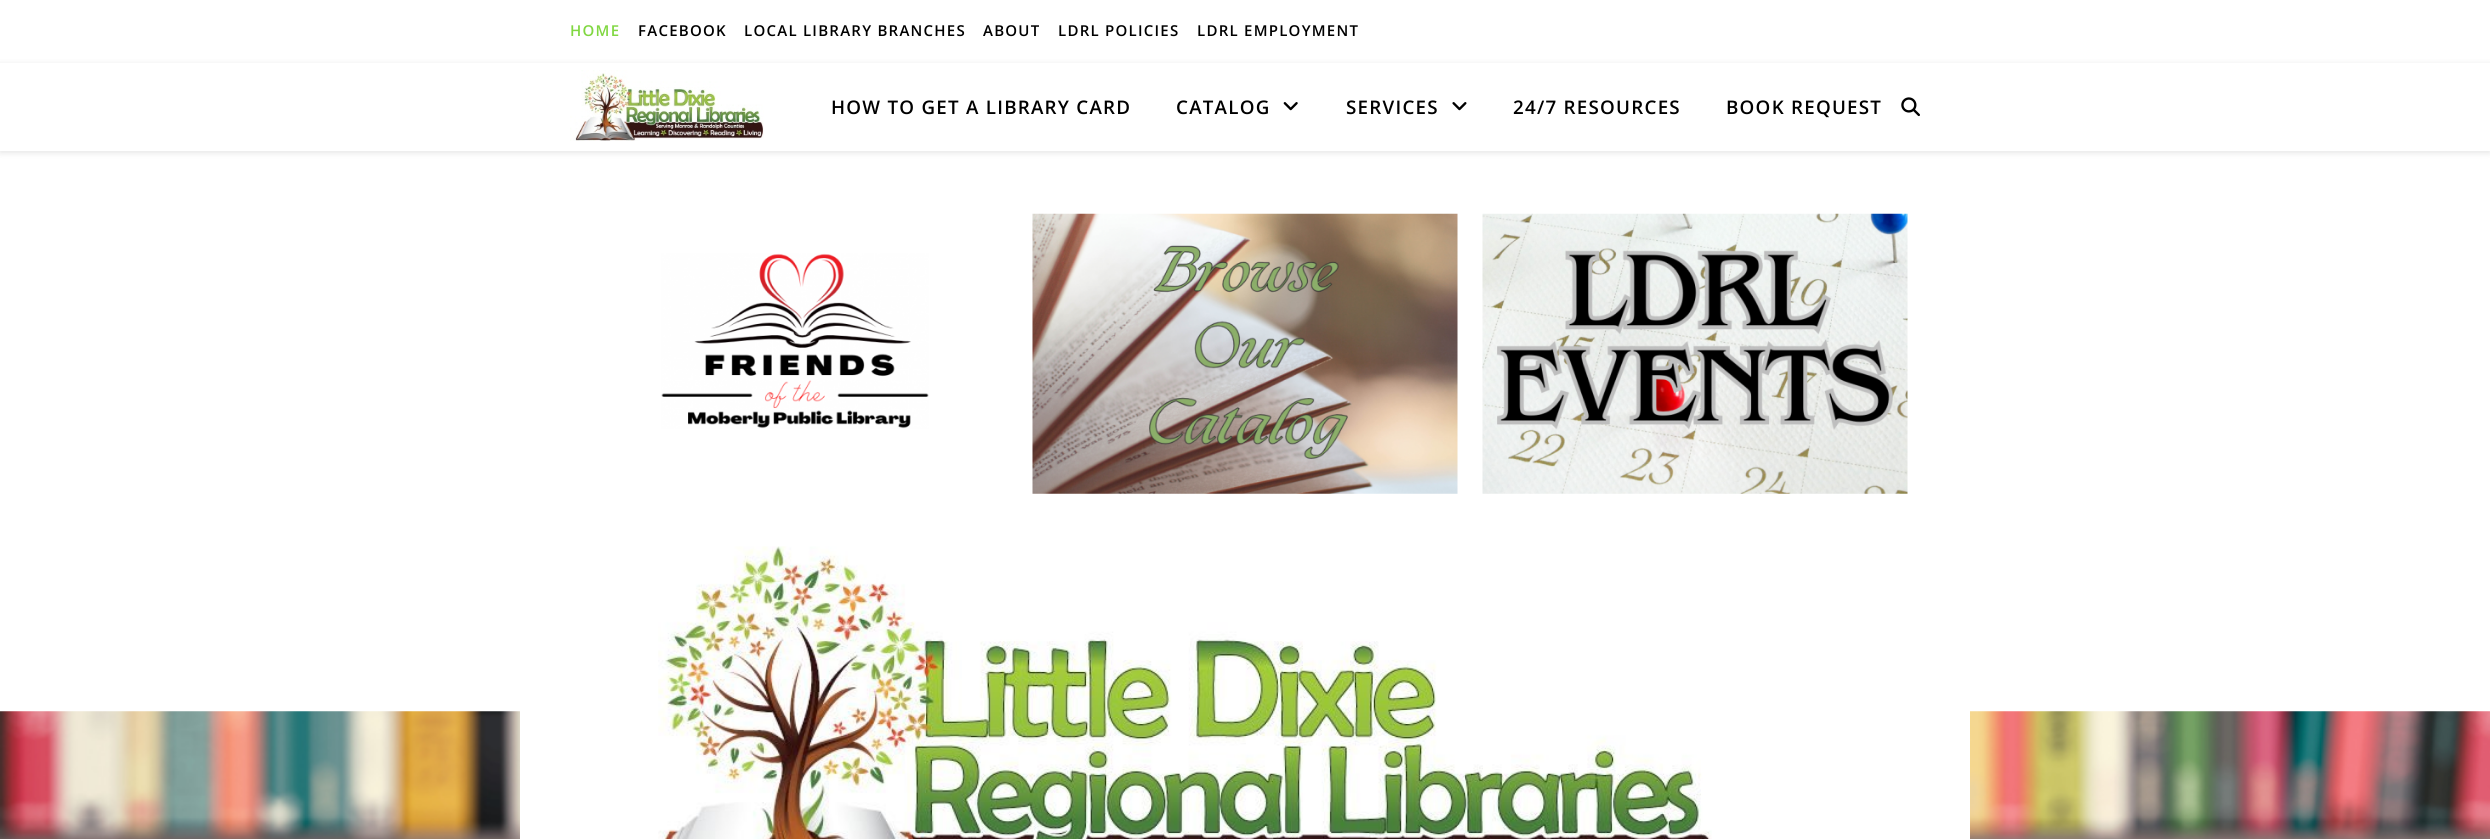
#include <cairo/cairo.h>
#include <math.h>
#include <stddef.h>


static void draw_spaced(cairo_t *cr, double x, double y, const char *s, double letter, double word) {
  cairo_move_to(cr, x, y);
  while (*s) {
    char ch[5] = {0};
    int n = 0;
    do ch[n++] = *s++; while ((*s & 0xC0) == 0x80);
    cairo_show_text(cr, ch);
    cairo_rel_move_to(cr, letter + word * (*ch == ' '), 0);
  }
}

static void rounded_rect(cairo_t *cr, double x, double y, double w, double h, double r) {
  cairo_new_sub_path(cr);
  cairo_arc(cr, x + w - r, y + h - r, r, 0, M_PI / 2);
  cairo_arc(cr, x + r, y + h - r, r, M_PI / 2, M_PI);
  cairo_arc(cr, x + r, y + r, r, M_PI, 1.5 * M_PI);
  cairo_arc(cr, x + w - r, y + r, r, 1.5 * M_PI, 2 * M_PI);
  cairo_close_path(cr);
}

static void draw_shadow(cairo_t *cr, double x, double y, double w, double h, double r, double blur, double alpha) {
  cairo_push_group_with_content(cr, CAIRO_CONTENT_ALPHA);
  cairo_set_operator(cr, CAIRO_OPERATOR_SOURCE);
  for (int i = 15; i >= -15 && fmin(w, h) + blur * i / 3 > 0; i -= 2) {
    double e = blur * i / 6;
    cairo_set_source_rgba(cr, 0, 0, 0, alpha * erfc((i - 1) / 8.5) / 2);
    rounded_rect(cr, x - e, y - e, w + 2 * e, h + 2 * e, fmax(0, fmin(r + e + blur * .6, fmin(w, h) / 2 + e)));
    cairo_fill(cr);
  }
  cairo_pattern_t *soft = cairo_pop_group(cr);
  cairo_mask(cr, soft);
  cairo_pattern_destroy(soft);
}

static void draw_image(cairo_t *cr, const char *path, double x, double y, double w, double h) {
  cairo_surface_t *image = cairo_image_surface_create_from_png(path);
  cairo_save(cr);
  cairo_set_source_surface(cr, image, x, y);
  cairo_rectangle(cr, x, y, w, h);
  cairo_fill(cr);
  cairo_restore(cr);
  cairo_surface_destroy(image);
}

static void draw(cairo_t *cr) {
  cairo_set_source_rgb(cr, 1, 1, 1);
  cairo_paint(cr);
  draw_image(cr, "images/1.png", 0, 711, 2490, 128);
  cairo_set_source_rgb(cr, 0, 0, 0);
  draw_shadow(cr, 0, 64, 2490, 89, 0, 3, 0.1);
  cairo_set_source_rgb(cr, 1, 1, 1);
  cairo_rectangle(cr, 0, 63, 2490, 88);
  cairo_fill(cr);
  draw_image(cr, "images/2.png", 570, 70, 194, 71);
  draw_image(cr, "images/3.png", 1283, 102, 15, 9);
  draw_image(cr, "images/4.png", 1452, 102, 15, 9);
  draw_image(cr, "images/5.png", 1901, 97, 19, 20);
  cairo_rectangle(cr, 520, 711, 1450, 128);
  cairo_fill(cr);
  draw_image(cr, "images/6.png", 661, 253, 268, 176);
  draw_image(cr, "images/7.png", 1032, 213, 426, 281);
  draw_image(cr, "images/8.png", 1482, 213, 426, 281);
  draw_image(cr, "images/9.png", 658, 546, 1054, 293);
  cairo_select_font_face(cr, "Open Sans SemiBold", CAIRO_FONT_SLANT_NORMAL, CAIRO_FONT_WEIGHT_NORMAL);
  cairo_set_font_size(cr, 15);
  cairo_set_source_rgb(cr, 129 / 255.0, 215 / 255.0, 66 / 255.0);
  draw_spaced(cr, 570, 36, "HOME", 1.25, 0);
  cairo_set_source_rgb(cr, 0, 0, 0);
  draw_spaced(cr, 638, 36, "FACEBOOK", 1.25, 0);
  draw_spaced(cr, 744, 36, "LOCAL LIBRARY BRANCHES", 1.25, 0);
  draw_spaced(cr, 983, 36, "ABOUT", 1.25, 0);
  draw_spaced(cr, 1058, 36, "LDRL POLICIES", 1.25, 0);
  draw_spaced(cr, 1197, 36, "LDRL EMPLOYMENT", 1.25, 0);
  cairo_set_font_size(cr, 18.75);
  draw_spaced(cr, 831, 114, "HOW TO GET A LIBRARY CARD", 1.25, 0);
  draw_spaced(cr, 1176, 114, "CATALOG", 1.25, 0);
  draw_spaced(cr, 1346, 114, "SERVICES", 1.25, 0);
  draw_spaced(cr, 1513, 114, "24/7 RESOURCES", 1.25, 0);
  draw_spaced(cr, 1726, 114, "BOOK REQUEST", 1.25, 0);
}

int main(void) {
  cairo_surface_t *surface = cairo_image_surface_create(CAIRO_FORMAT_RGB24, 2490, 839);
  cairo_t *cr = cairo_create(surface);
  cairo_font_options_t *options = cairo_font_options_create();
  cairo_font_options_set_hint_metrics(options, CAIRO_HINT_METRICS_OFF);
  cairo_font_options_set_hint_style(options, CAIRO_HINT_STYLE_NONE);
  cairo_set_font_options(cr, options);
  cairo_set_miter_limit(cr, 4);
  draw(cr);
  cairo_surface_write_to_png(surface, "out.png");
  cairo_font_options_destroy(options);
  cairo_destroy(cr);
  cairo_surface_destroy(surface);
  return 0;
}
